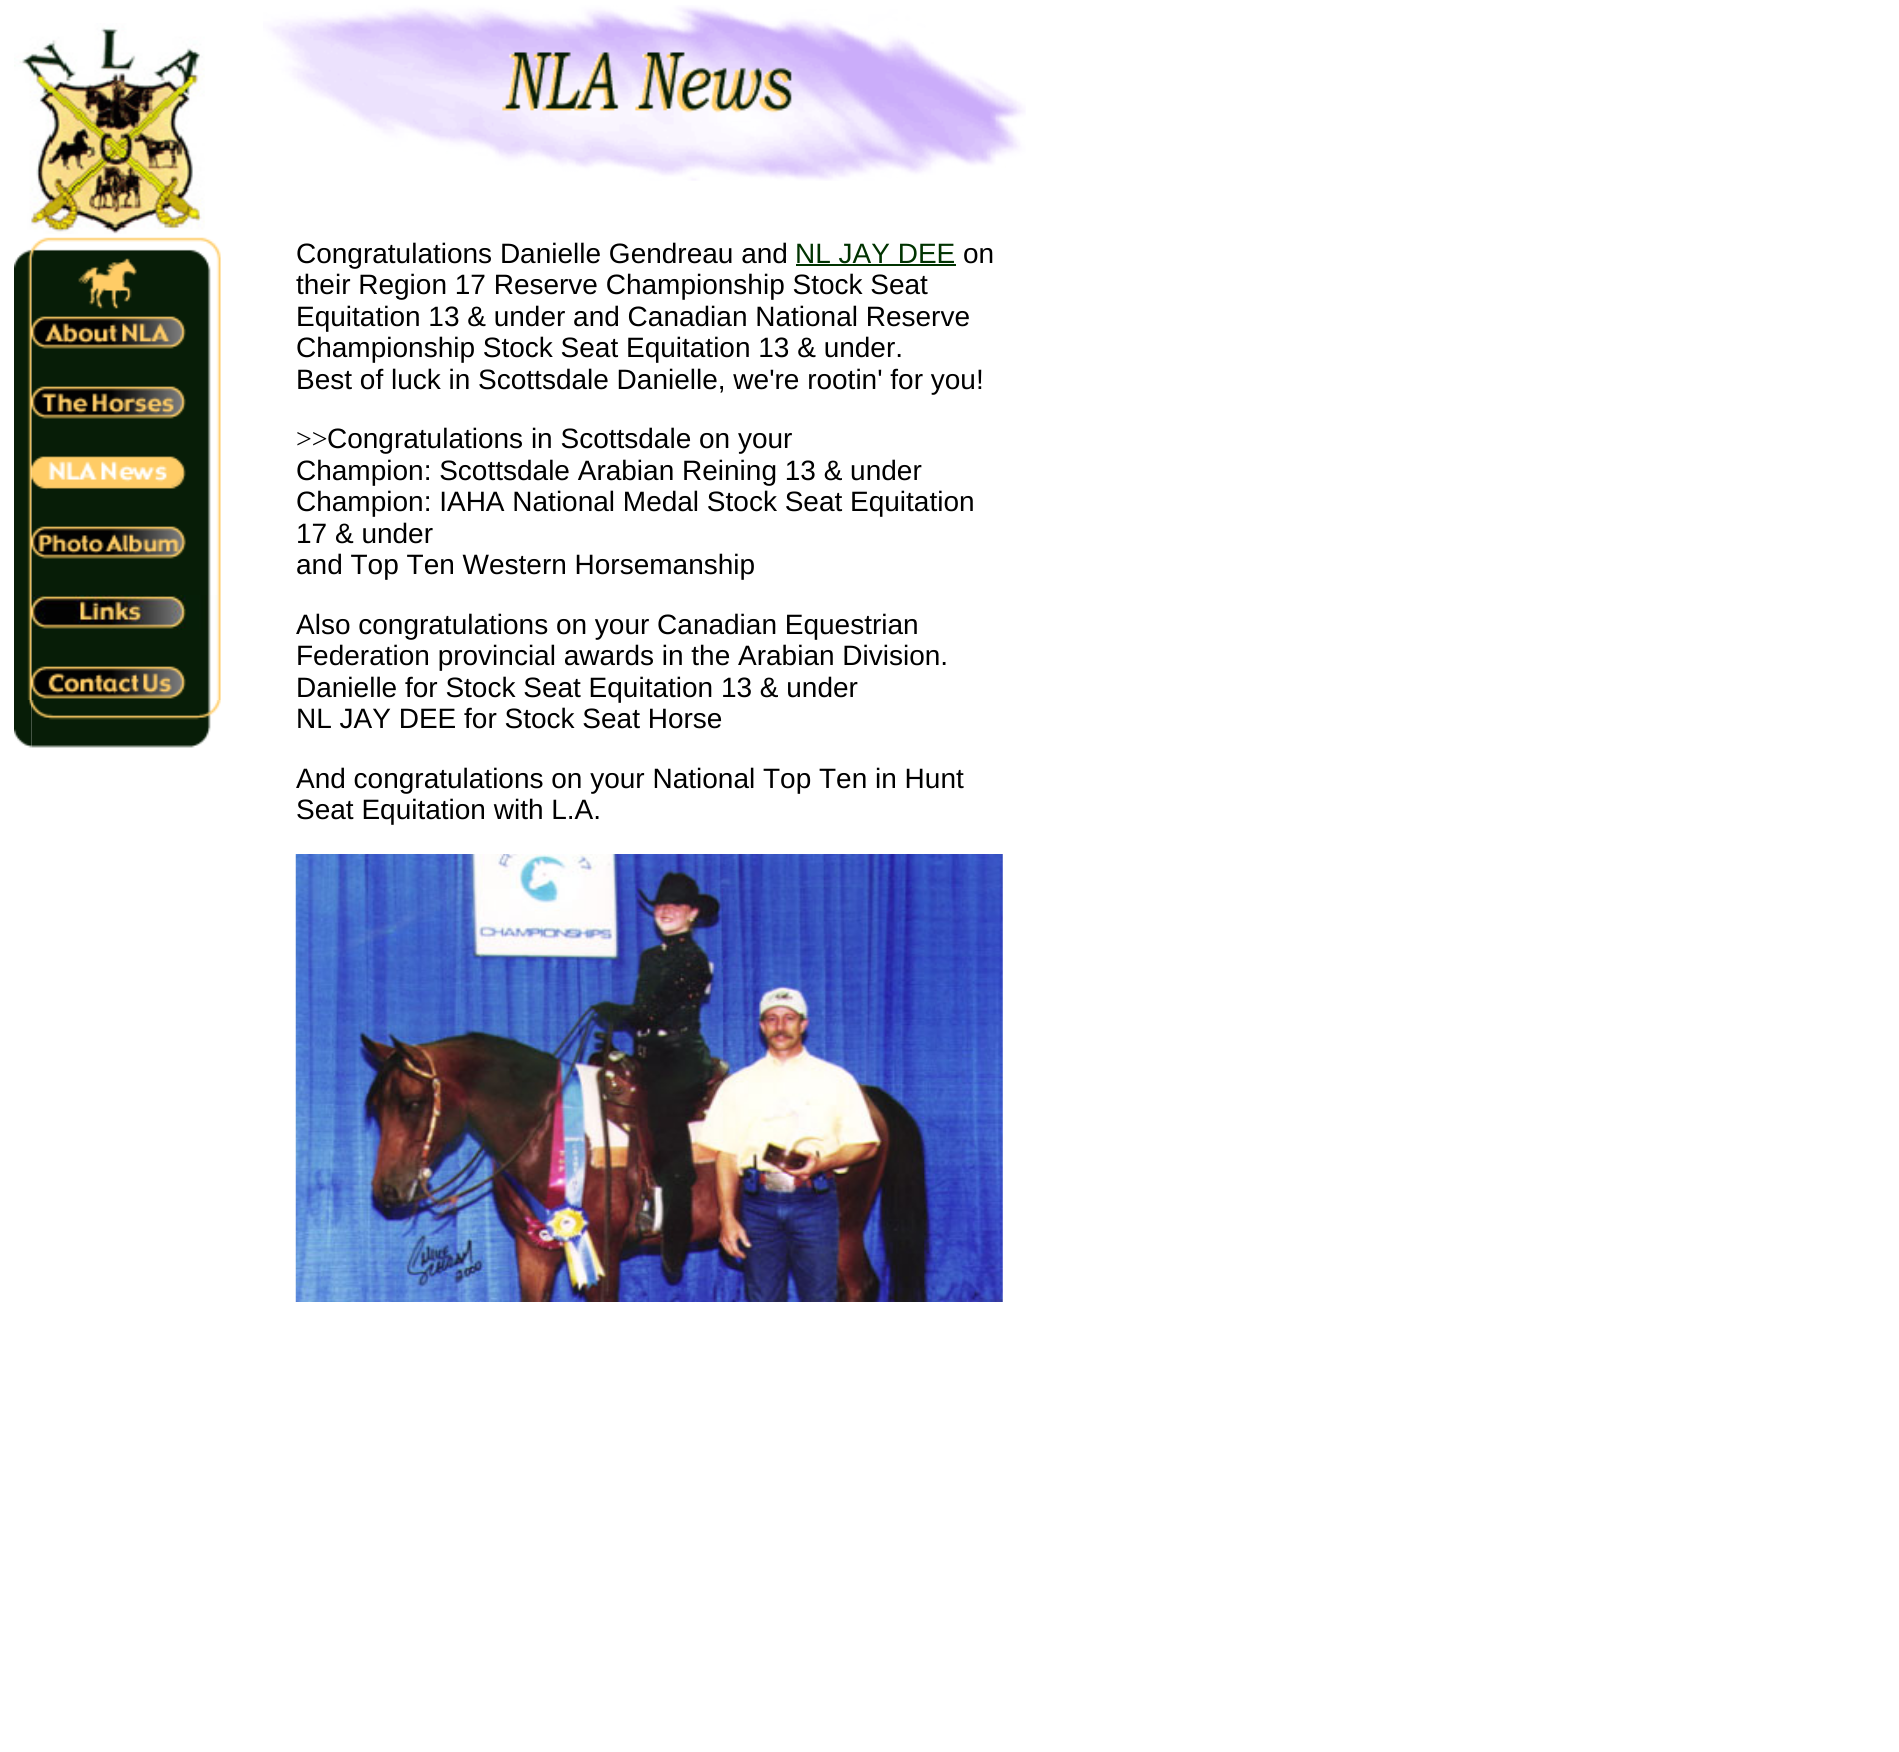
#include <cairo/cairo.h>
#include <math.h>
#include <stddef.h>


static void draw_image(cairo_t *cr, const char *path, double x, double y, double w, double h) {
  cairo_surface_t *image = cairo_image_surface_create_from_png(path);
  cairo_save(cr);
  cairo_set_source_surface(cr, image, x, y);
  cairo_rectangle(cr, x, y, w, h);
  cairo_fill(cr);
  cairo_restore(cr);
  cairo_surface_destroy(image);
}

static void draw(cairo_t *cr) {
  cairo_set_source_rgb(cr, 1, 1, 1);
  cairo_paint(cr);
  draw_image(cr, "images/1.png", 263, 5, 763, 176);
  draw_image(cr, "images/2.png", 14, 23, 191, 211);
  draw_image(cr, "images/3.png", 14, 249, 18, 66);
  draw_image(cr, "images/4.png", 31, 237, 190, 78);
  draw_image(cr, "images/5.png", 14, 315, 18, 35);
  draw_image(cr, "images/6.png", 31, 315, 190, 35);
  draw_image(cr, "images/5.png", 14, 350, 18, 35);
  draw_image(cr, "images/7.png", 31, 350, 190, 35);
  draw_image(cr, "images/5.png", 14, 385, 18, 35);
  draw_image(cr, "images/8.png", 31, 385, 190, 35);
  draw_image(cr, "images/5.png", 14, 420, 18, 35);
  draw_image(cr, "images/7.png", 31, 420, 190, 35);
  draw_image(cr, "images/5.png", 14, 455, 18, 35);
  draw_image(cr, "images/9.png", 31, 455, 190, 35);
  draw_image(cr, "images/5.png", 14, 490, 18, 35);
  draw_image(cr, "images/7.png", 31, 490, 190, 35);
  draw_image(cr, "images/5.png", 14, 525, 18, 35);
  draw_image(cr, "images/10.png", 31, 525, 190, 35);
  draw_image(cr, "images/5.png", 14, 560, 18, 35);
  draw_image(cr, "images/7.png", 31, 560, 190, 35);
  draw_image(cr, "images/5.png", 14, 595, 18, 35);
  draw_image(cr, "images/11.png", 31, 595, 190, 35);
  draw_image(cr, "images/5.png", 14, 630, 18, 35);
  draw_image(cr, "images/7.png", 31, 630, 190, 35);
  draw_image(cr, "images/5.png", 14, 665, 18, 35);
  draw_image(cr, "images/12.png", 31, 665, 190, 35);
  draw_image(cr, "images/13.png", 14, 700, 18, 48);
  draw_image(cr, "images/14.png", 31, 700, 190, 48);
  draw_image(cr, "images/15.png", 501, 52, 291, 61);
  cairo_set_source_rgb(cr, 0, 51 / 255.0, 0);
  cairo_rectangle(cr, 796, 264, 160, 2);
  cairo_fill(cr);
  draw_image(cr, "images/16.png", 295, 854, 708, 448);
  cairo_select_font_face(cr, "Liberation Sans", CAIRO_FONT_SLANT_NORMAL, CAIRO_FONT_WEIGHT_NORMAL);
  cairo_set_font_size(cr, 28);
  cairo_set_source_rgb(cr, 0, 0, 0);
  cairo_move_to(cr, 296, 263);
  cairo_show_text(cr, "Congratulations Danielle Gendreau and");
  cairo_set_source_rgb(cr, 0, 51 / 255.0, 0);
  cairo_move_to(cr, 795, 263);
  cairo_show_text(cr, "NL JAY DEE");
  cairo_set_source_rgb(cr, 0, 0, 0);
  cairo_move_to(cr, 963, 263);
  cairo_show_text(cr, "on");
  cairo_move_to(cr, 296, 294);
  cairo_show_text(cr, "their Region 17 Reserve Championship Stock Seat");
  cairo_move_to(cr, 296, 326);
  cairo_show_text(cr, "Equitation 13 & under and Canadian National Reserve");
  cairo_move_to(cr, 296, 357);
  cairo_show_text(cr, "Championship Stock Seat Equitation 13 & under.");
  cairo_move_to(cr, 296, 389);
  cairo_show_text(cr, "Best of luck in Scottsdale Danielle, we're rootin' for you!");
  cairo_select_font_face(cr, "Liberation Serif", CAIRO_FONT_SLANT_NORMAL, CAIRO_FONT_WEIGHT_NORMAL);
  cairo_move_to(cr, 296, 448);
  cairo_show_text(cr, ">>");
  cairo_select_font_face(cr, "Liberation Sans", CAIRO_FONT_SLANT_NORMAL, CAIRO_FONT_WEIGHT_NORMAL);
  cairo_move_to(cr, 327, 448);
  cairo_show_text(cr, "Congratulations in Scottsdale on your");
  cairo_move_to(cr, 296, 480);
  cairo_show_text(cr, "Champion: Scottsdale Arabian Reining 13 & under");
  cairo_move_to(cr, 296, 511);
  cairo_show_text(cr, "Champion: IAHA National Medal Stock Seat Equitation");
  cairo_move_to(cr, 296, 543);
  cairo_show_text(cr, "17 & under");
  cairo_move_to(cr, 296, 574);
  cairo_show_text(cr, "and Top Ten Western Horsemanship");
  cairo_move_to(cr, 296, 634);
  cairo_show_text(cr, "Also congratulations on your Canadian Equestrian");
  cairo_move_to(cr, 296, 665);
  cairo_show_text(cr, "Federation provincial awards in the Arabian Division.");
  cairo_move_to(cr, 296, 697);
  cairo_show_text(cr, "Danielle for Stock Seat Equitation 13 & under");
  cairo_move_to(cr, 296, 728);
  cairo_show_text(cr, "NL JAY DEE for Stock Seat Horse");
  cairo_move_to(cr, 296, 788);
  cairo_show_text(cr, "And congratulations on your National Top Ten in Hunt");
  cairo_move_to(cr, 296, 819);
  cairo_show_text(cr, "Seat Equitation with L.A.");
}

int main(void) {
  cairo_surface_t *surface = cairo_image_surface_create(CAIRO_FORMAT_RGB24, 1899, 1752);
  cairo_t *cr = cairo_create(surface);
  cairo_font_options_t *options = cairo_font_options_create();
  cairo_font_options_set_hint_metrics(options, CAIRO_HINT_METRICS_OFF);
  cairo_font_options_set_hint_style(options, CAIRO_HINT_STYLE_NONE);
  cairo_set_font_options(cr, options);
  cairo_set_miter_limit(cr, 4);
  draw(cr);
  cairo_surface_write_to_png(surface, "out.png");
  cairo_font_options_destroy(options);
  cairo_destroy(cr);
  cairo_surface_destroy(surface);
  return 0;
}
